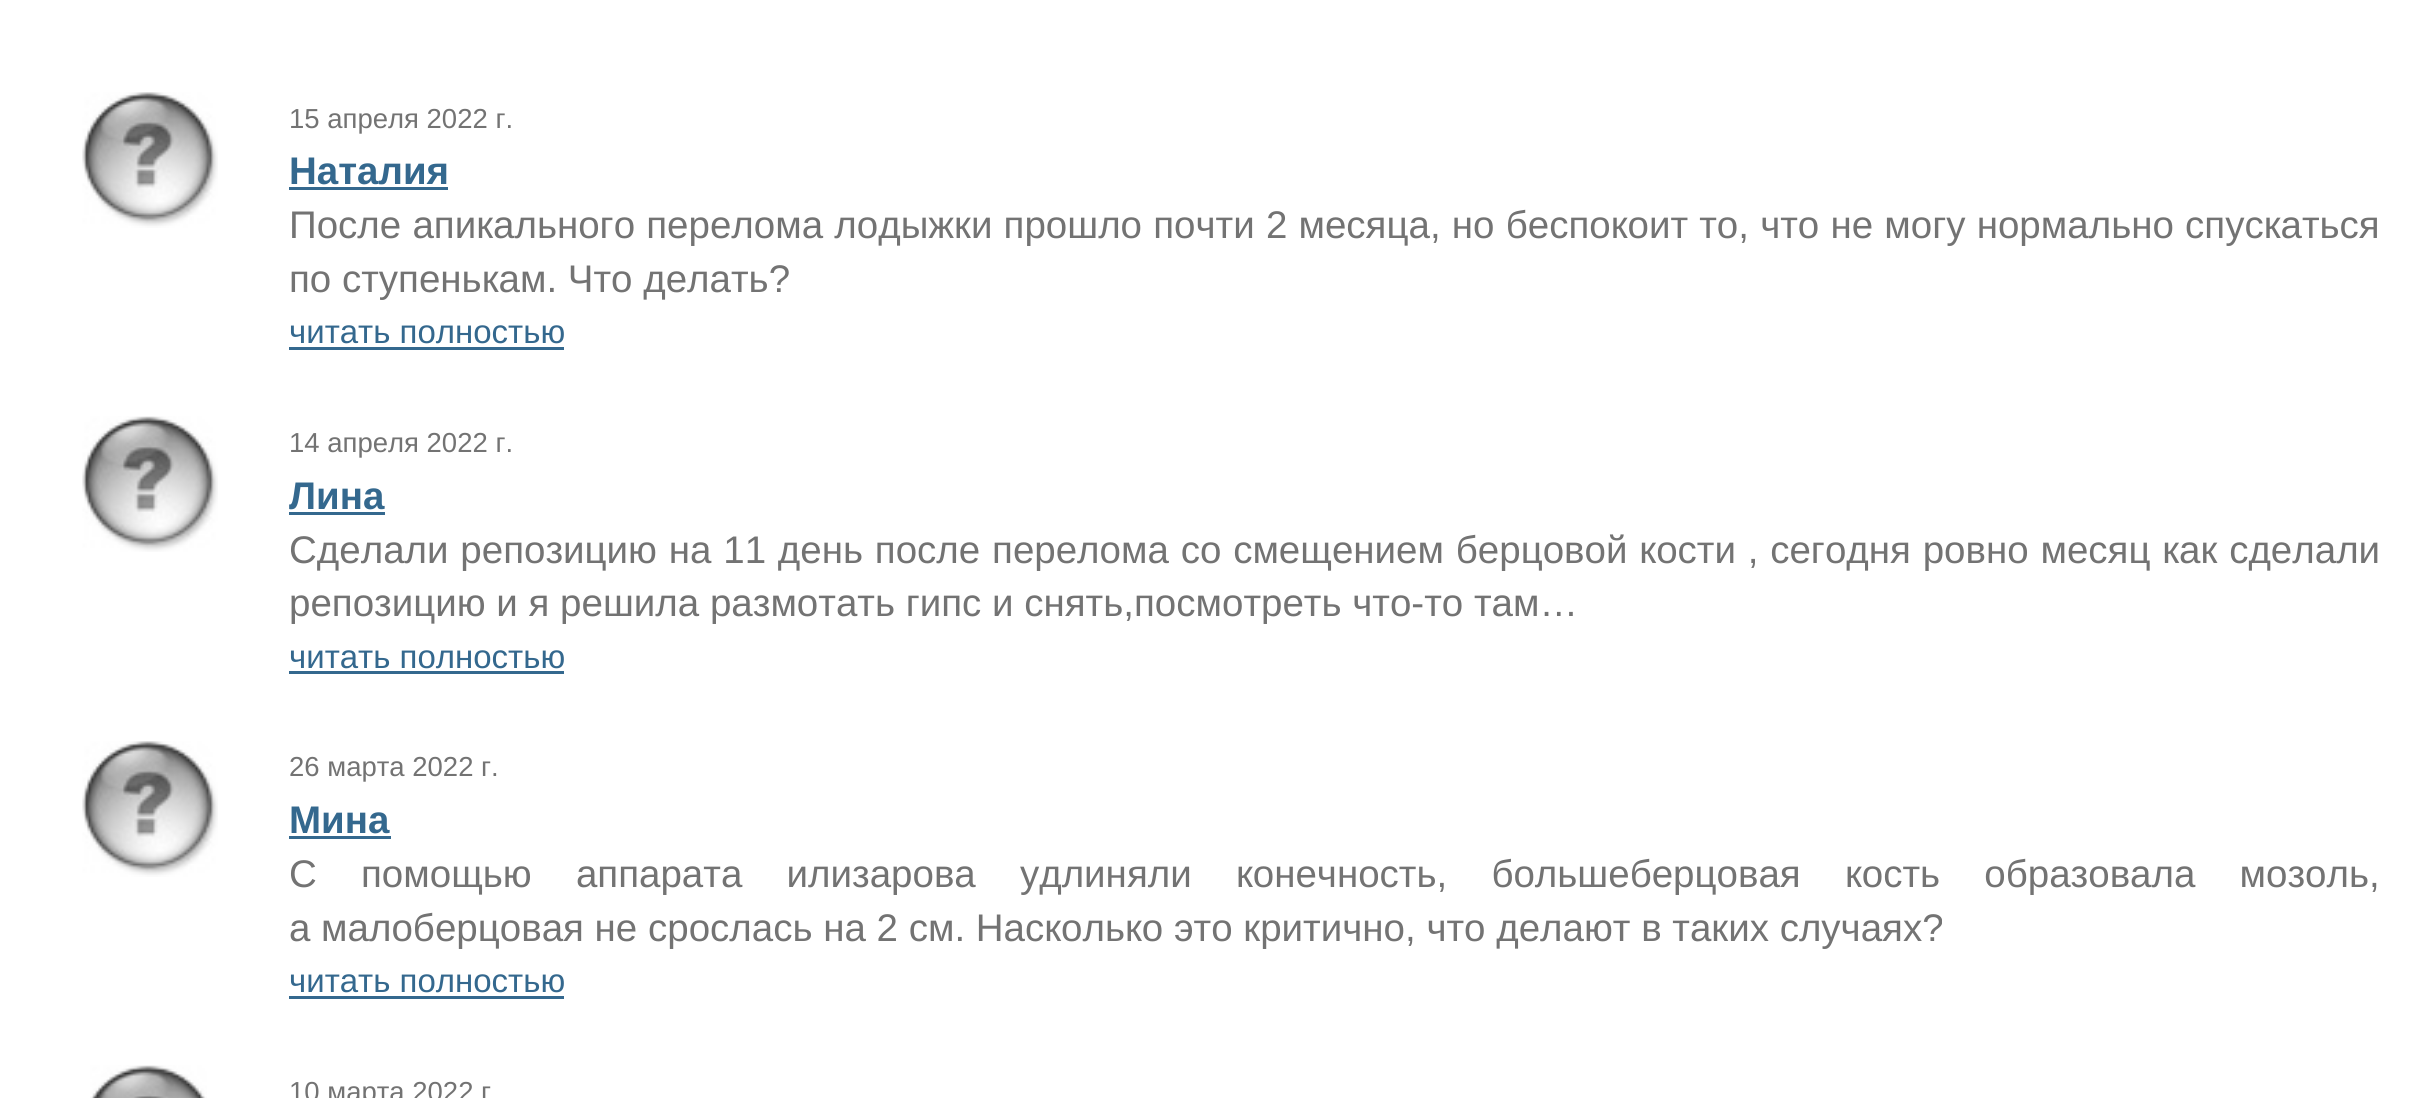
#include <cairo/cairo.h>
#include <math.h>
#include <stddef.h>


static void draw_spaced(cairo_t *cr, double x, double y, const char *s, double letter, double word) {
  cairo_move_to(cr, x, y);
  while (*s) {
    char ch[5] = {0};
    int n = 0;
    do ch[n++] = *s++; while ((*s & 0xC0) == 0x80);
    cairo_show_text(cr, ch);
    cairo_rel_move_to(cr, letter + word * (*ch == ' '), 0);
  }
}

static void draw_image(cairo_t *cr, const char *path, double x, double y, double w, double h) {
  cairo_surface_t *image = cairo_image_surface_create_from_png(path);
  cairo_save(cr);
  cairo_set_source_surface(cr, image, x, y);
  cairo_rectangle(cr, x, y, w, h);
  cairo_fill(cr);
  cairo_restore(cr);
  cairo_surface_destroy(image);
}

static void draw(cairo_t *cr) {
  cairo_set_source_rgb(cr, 1, 1, 1);
  cairo_paint(cr);
  draw_image(cr, "images/1.png", 82, 92, 136, 136);
  cairo_set_source_rgb(cr, 52 / 255.0, 104 / 255.0, 142 / 255.0);
  cairo_rectangle(cr, 289, 187, 159, 3);
  cairo_fill(cr);
  cairo_rectangle(cr, 289, 347, 275, 3);
  cairo_fill(cr);
  draw_image(cr, "images/2.png", 82, 416, 136, 136);
  cairo_rectangle(cr, 289, 512, 96, 3);
  cairo_fill(cr);
  cairo_rectangle(cr, 289, 671, 275, 3);
  cairo_fill(cr);
  draw_image(cr, "images/1.png", 82, 741, 136, 136);
  cairo_rectangle(cr, 289, 836, 102, 3);
  cairo_fill(cr);
  cairo_rectangle(cr, 289, 996, 275, 3);
  cairo_fill(cr);
  draw_image(cr, "images/3.png", 90, 1065, 117, 33);
  cairo_select_font_face(cr, "Liberation Sans", CAIRO_FONT_SLANT_NORMAL, CAIRO_FONT_WEIGHT_NORMAL);
  cairo_set_font_size(cr, 27.5);
  cairo_set_source_rgb(cr, 115 / 255.0, 115 / 255.0, 115 / 255.0);
  cairo_move_to(cr, 289, 128);
  cairo_show_text(cr, "15 апреля 2022 г.");
  cairo_select_font_face(cr, "Liberation Sans", CAIRO_FONT_SLANT_NORMAL, CAIRO_FONT_WEIGHT_BOLD);
  cairo_set_font_size(cr, 38.5);
  cairo_set_source_rgb(cr, 52 / 255.0, 104 / 255.0, 142 / 255.0);
  cairo_move_to(cr, 289, 184);
  cairo_show_text(cr, "Наталия");
  cairo_select_font_face(cr, "Liberation Sans", CAIRO_FONT_SLANT_NORMAL, CAIRO_FONT_WEIGHT_NORMAL);
  cairo_set_source_rgb(cr, 115 / 255.0, 115 / 255.0, 115 / 255.0);
  draw_spaced(cr, 289, 238, "После апикального перелома лодыжки прошло почти 2 месяца, но беспокоит то, что не могу нормально спускаться", 0, 0.5);
  cairo_move_to(cr, 289, 292);
  cairo_show_text(cr, "по ступенькам. Что делать?");
  cairo_set_font_size(cr, 33);
  cairo_set_source_rgb(cr, 52 / 255.0, 104 / 255.0, 142 / 255.0);
  cairo_move_to(cr, 289, 343);
  cairo_show_text(cr, "читать полностью");
  cairo_set_font_size(cr, 27.5);
  cairo_set_source_rgb(cr, 115 / 255.0, 115 / 255.0, 115 / 255.0);
  cairo_move_to(cr, 289, 452);
  cairo_show_text(cr, "14 апреля 2022 г.");
  cairo_select_font_face(cr, "Liberation Sans", CAIRO_FONT_SLANT_NORMAL, CAIRO_FONT_WEIGHT_BOLD);
  cairo_set_font_size(cr, 38.5);
  cairo_set_source_rgb(cr, 52 / 255.0, 104 / 255.0, 142 / 255.0);
  cairo_move_to(cr, 289, 509);
  cairo_show_text(cr, "Лина");
  cairo_select_font_face(cr, "Liberation Sans", CAIRO_FONT_SLANT_NORMAL, CAIRO_FONT_WEIGHT_NORMAL);
  cairo_set_source_rgb(cr, 115 / 255.0, 115 / 255.0, 115 / 255.0);
  draw_spaced(cr, 289, 563, "Сделали репозицию на 11 день после перелома со смещением берцовой кости , сегодня ровно месяц как сделали", 0, 1.1);
  cairo_move_to(cr, 289, 616);
  cairo_show_text(cr, "репозицию и я решила размотать гипс и снять,посмотреть что-то там…");
  cairo_set_font_size(cr, 33);
  cairo_set_source_rgb(cr, 52 / 255.0, 104 / 255.0, 142 / 255.0);
  cairo_move_to(cr, 289, 668);
  cairo_show_text(cr, "читать полностью");
  cairo_set_font_size(cr, 27.5);
  cairo_set_source_rgb(cr, 115 / 255.0, 115 / 255.0, 115 / 255.0);
  cairo_move_to(cr, 289, 776);
  cairo_show_text(cr, "26 марта 2022 г.");
  cairo_select_font_face(cr, "Liberation Sans", CAIRO_FONT_SLANT_NORMAL, CAIRO_FONT_WEIGHT_BOLD);
  cairo_set_font_size(cr, 38.5);
  cairo_set_source_rgb(cr, 52 / 255.0, 104 / 255.0, 142 / 255.0);
  cairo_move_to(cr, 289, 833);
  cairo_show_text(cr, "Мина");
  cairo_select_font_face(cr, "Liberation Sans", CAIRO_FONT_SLANT_NORMAL, CAIRO_FONT_WEIGHT_NORMAL);
  cairo_set_source_rgb(cr, 115 / 255.0, 115 / 255.0, 115 / 255.0);
  draw_spaced(cr, 289, 887, "С помощью аппарата илизарова удлиняли конечность, большеберцовая кость образовала мозоль,", 0, 33.5);
  cairo_move_to(cr, 289, 941);
  cairo_show_text(cr, "а малоберцовая не срослась на 2 см. Насколько это критично, что делают в таких случаях?");
  cairo_set_font_size(cr, 33);
  cairo_set_source_rgb(cr, 52 / 255.0, 104 / 255.0, 142 / 255.0);
  cairo_move_to(cr, 289, 992);
  cairo_show_text(cr, "читать полностью");
  cairo_set_font_size(cr, 27.5);
  cairo_set_source_rgb(cr, 115 / 255.0, 115 / 255.0, 115 / 255.0);
  cairo_move_to(cr, 289, 1101);
  cairo_show_text(cr, "10 марта 2022 г");
}

int main(void) {
  cairo_surface_t *surface = cairo_image_surface_create(CAIRO_FORMAT_RGB24, 2430, 1098);
  cairo_t *cr = cairo_create(surface);
  cairo_font_options_t *options = cairo_font_options_create();
  cairo_font_options_set_hint_metrics(options, CAIRO_HINT_METRICS_OFF);
  cairo_font_options_set_hint_style(options, CAIRO_HINT_STYLE_NONE);
  cairo_set_font_options(cr, options);
  cairo_set_miter_limit(cr, 4);
  draw(cr);
  cairo_surface_write_to_png(surface, "out.png");
  cairo_font_options_destroy(options);
  cairo_destroy(cr);
  cairo_surface_destroy(surface);
  return 0;
}
